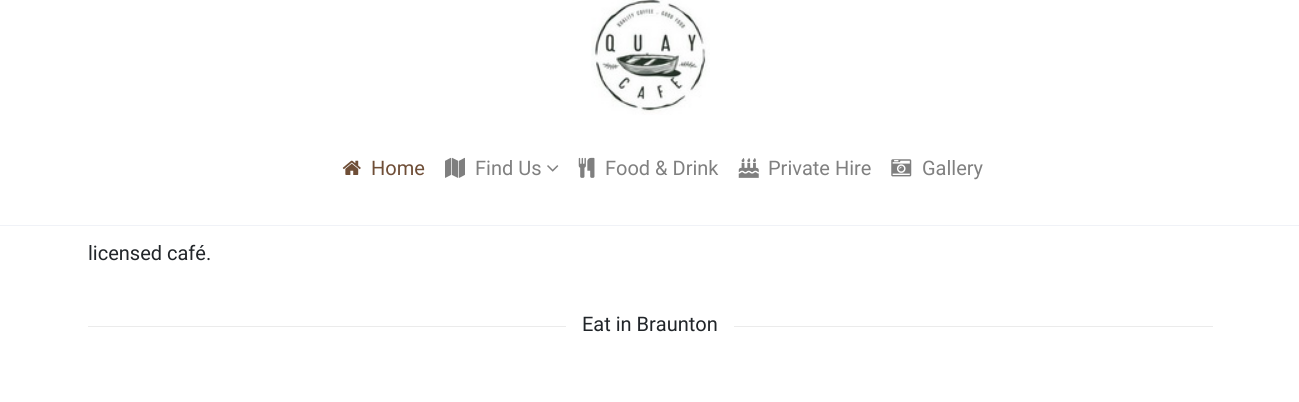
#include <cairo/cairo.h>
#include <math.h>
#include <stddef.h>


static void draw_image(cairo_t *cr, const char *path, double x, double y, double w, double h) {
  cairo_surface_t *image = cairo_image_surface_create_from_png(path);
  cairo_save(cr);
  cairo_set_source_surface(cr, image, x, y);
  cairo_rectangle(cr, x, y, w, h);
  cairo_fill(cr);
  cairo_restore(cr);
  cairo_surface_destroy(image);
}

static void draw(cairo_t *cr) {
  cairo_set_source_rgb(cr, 1, 1, 1);
  cairo_paint(cr);
  cairo_set_source_rgb(cr, 240 / 255.0, 242 / 255.0, 247 / 255.0);
  cairo_rectangle(cr, 0, 225, 1299, 1);
  cairo_fill(cr);
  draw_image(cr, "images/1.png", 591, 0, 119, 115);
  draw_image(cr, "images/2.png", 342, 160, 19, 15);
  draw_image(cr, "images/3.png", 445, 157, 20, 21);
  draw_image(cr, "images/4.png", 547, 165, 12, 7);
  draw_image(cr, "images/5.png", 578, 157, 17, 21);
  draw_image(cr, "images/6.png", 738, 158, 21, 20);
  draw_image(cr, "images/7.png", 891, 159, 21, 18);
  cairo_set_source_rgb(cr, 235 / 255.0, 235 / 255.0, 235 / 255.0);
  cairo_rectangle(cr, 88, 326, 478, 1);
  cairo_fill(cr);
  cairo_rectangle(cr, 734, 326, 479, 1);
  cairo_fill(cr);
  cairo_select_font_face(cr, "Roboto", CAIRO_FONT_SLANT_NORMAL, CAIRO_FONT_WEIGHT_NORMAL);
  cairo_set_font_size(cr, 20);
  cairo_set_source_rgb(cr, 111 / 255.0, 78 / 255.0, 55 / 255.0);
  cairo_move_to(cr, 371, 175);
  cairo_show_text(cr, "Home");
  cairo_set_source_rgb(cr, 128 / 255.0, 128 / 255.0, 128 / 255.0);
  cairo_move_to(cr, 475, 175);
  cairo_show_text(cr, "Find Us");
  cairo_move_to(cr, 605, 175);
  cairo_show_text(cr, "Food & Drink");
  cairo_move_to(cr, 768, 175);
  cairo_show_text(cr, "Private Hire");
  cairo_move_to(cr, 922, 175);
  cairo_show_text(cr, "Gallery");
  cairo_set_source_rgb(cr, 33 / 255.0, 37 / 255.0, 41 / 255.0);
  cairo_move_to(cr, 88, 260);
  cairo_show_text(cr, "licensed café.");
  cairo_move_to(cr, 582, 331);
  cairo_show_text(cr, "Eat in Braunton");
}

int main(void) {
  cairo_surface_t *surface = cairo_image_surface_create(CAIRO_FORMAT_RGB24, 1299, 402);
  cairo_t *cr = cairo_create(surface);
  cairo_font_options_t *options = cairo_font_options_create();
  cairo_font_options_set_hint_metrics(options, CAIRO_HINT_METRICS_OFF);
  cairo_font_options_set_hint_style(options, CAIRO_HINT_STYLE_NONE);
  cairo_set_font_options(cr, options);
  cairo_set_miter_limit(cr, 4);
  draw(cr);
  cairo_surface_write_to_png(surface, "out.png");
  cairo_font_options_destroy(options);
  cairo_destroy(cr);
  cairo_surface_destroy(surface);
  return 0;
}
